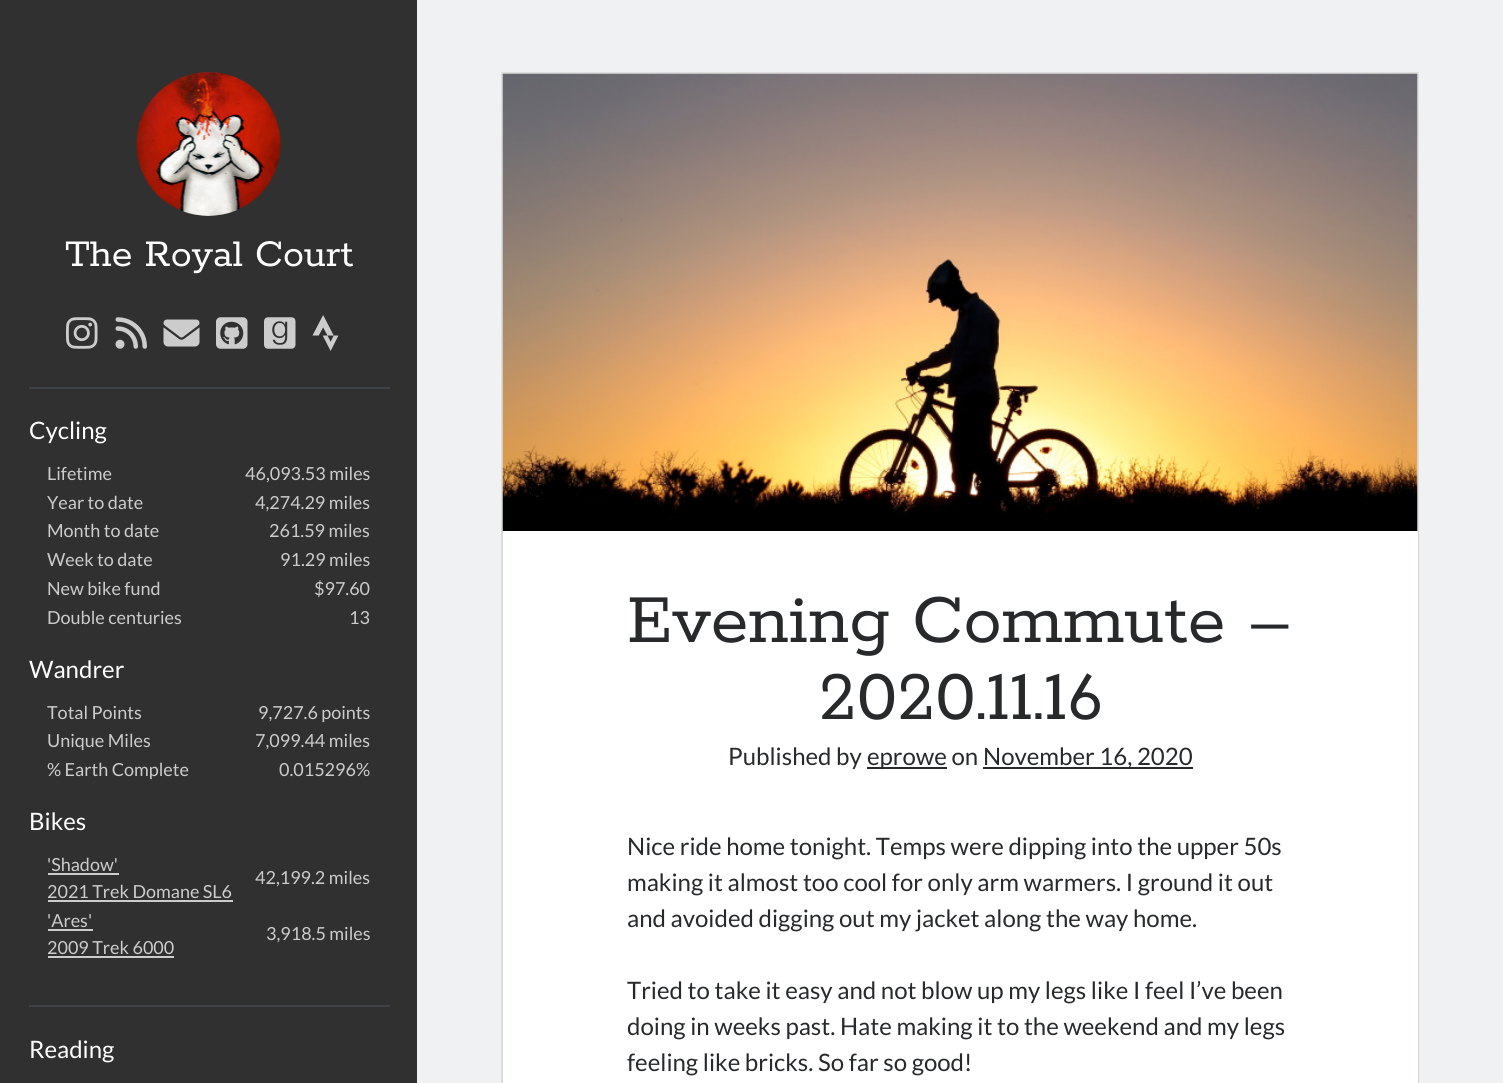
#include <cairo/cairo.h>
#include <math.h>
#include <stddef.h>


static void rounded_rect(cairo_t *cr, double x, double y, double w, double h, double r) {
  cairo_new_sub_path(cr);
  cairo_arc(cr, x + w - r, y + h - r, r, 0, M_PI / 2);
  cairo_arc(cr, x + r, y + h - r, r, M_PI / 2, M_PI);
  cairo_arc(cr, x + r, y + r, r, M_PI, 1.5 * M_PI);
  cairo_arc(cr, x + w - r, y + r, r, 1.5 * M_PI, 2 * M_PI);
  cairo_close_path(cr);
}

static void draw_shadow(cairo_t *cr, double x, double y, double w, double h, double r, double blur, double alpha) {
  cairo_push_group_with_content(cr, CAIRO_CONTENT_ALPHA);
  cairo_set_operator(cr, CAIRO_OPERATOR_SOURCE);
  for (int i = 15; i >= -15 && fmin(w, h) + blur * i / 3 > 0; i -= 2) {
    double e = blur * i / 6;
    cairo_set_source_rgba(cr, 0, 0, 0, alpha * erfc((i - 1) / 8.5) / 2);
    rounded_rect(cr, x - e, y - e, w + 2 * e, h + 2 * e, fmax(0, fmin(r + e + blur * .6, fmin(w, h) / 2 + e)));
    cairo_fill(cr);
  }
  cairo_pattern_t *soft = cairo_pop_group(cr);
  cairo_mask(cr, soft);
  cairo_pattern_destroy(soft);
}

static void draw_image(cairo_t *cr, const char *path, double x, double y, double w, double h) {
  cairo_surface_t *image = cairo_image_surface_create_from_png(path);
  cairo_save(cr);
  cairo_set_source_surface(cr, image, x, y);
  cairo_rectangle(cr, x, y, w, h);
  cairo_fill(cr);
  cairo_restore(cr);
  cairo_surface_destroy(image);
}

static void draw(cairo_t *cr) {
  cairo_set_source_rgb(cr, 48 / 255.0, 48 / 255.0, 48 / 255.0);
  cairo_paint(cr);
  draw_image(cr, "images/1.png", 136, 72, 145, 144);
  draw_image(cr, "images/2.png", 66, 317, 32, 32);
  draw_image(cr, "images/3.png", 115, 317, 32, 32);
  draw_image(cr, "images/4.png", 163, 319, 37, 28);
  draw_image(cr, "images/5.png", 216, 317, 32, 32);
  draw_image(cr, "images/6.png", 264, 317, 32, 32);
  draw_image(cr, "images/7.png", 312, 315, 27, 36);
  cairo_set_source_rgb(cr, 62 / 255.0, 65 / 255.0, 69 / 255.0);
  cairo_rectangle(cr, 29, 387, 361, 2);
  cairo_fill(cr);
  cairo_set_source_rgb(cr, 204 / 255.0, 204 / 255.0, 204 / 255.0);
  cairo_rectangle(cr, 48, 873, 71, 2);
  cairo_fill(cr);
  cairo_rectangle(cr, 48, 900, 185, 2);
  cairo_fill(cr);
  cairo_rectangle(cr, 48, 929, 45, 2);
  cairo_fill(cr);
  cairo_rectangle(cr, 48, 956, 126, 2);
  cairo_fill(cr);
  cairo_set_source_rgb(cr, 62 / 255.0, 65 / 255.0, 69 / 255.0);
  cairo_rectangle(cr, 29, 1005, 361, 2);
  cairo_fill(cr);
  cairo_set_source_rgb(cr, 240 / 255.0, 241 / 255.0, 242 / 255.0);
  cairo_rectangle(cr, 417, 0, 1086, 1083);
  cairo_fill(cr);
  cairo_rectangle(cr, 502, 73, 916, 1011);
  cairo_set_source_rgb(cr, 222 / 255.0, 222 / 255.0, 222 / 255.0);
  cairo_stroke(cr);
  cairo_set_source_rgb(cr, 39 / 255.0, 43 / 255.0, 47 / 255.0);
  draw_shadow(cr, 503, 531, 915, 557, 0, 1.5, 0.1);
  draw_image(cr, "images/8.png", 502, 73, 916, 458);
  cairo_set_source_rgb(cr, 1, 1, 1);
  cairo_rectangle(cr, 503, 531, 915, 552);
  cairo_fill(cr);
  cairo_set_source_rgb(cr, 39 / 255.0, 41 / 255.0, 43 / 255.0);
  cairo_rectangle(cr, 867, 767, 80, 2);
  cairo_fill(cr);
  cairo_rectangle(cr, 983, 767, 210, 2);
  cairo_fill(cr);
  cairo_select_font_face(cr, "Rokkitt", CAIRO_FONT_SLANT_NORMAL, CAIRO_FONT_WEIGHT_NORMAL);
  cairo_set_font_size(cr, 42);
  cairo_set_source_rgb(cr, 1, 1, 1);
  cairo_move_to(cr, 65, 266);
  cairo_show_text(cr, "The Royal Court");
  cairo_select_font_face(cr, "Lato", CAIRO_FONT_SLANT_NORMAL, CAIRO_FONT_WEIGHT_NORMAL);
  cairo_set_font_size(cr, 24);
  cairo_move_to(cr, 29, 439);
  cairo_show_text(cr, "Cycling");
  cairo_set_font_size(cr, 18);
  cairo_set_source_rgb(cr, 204 / 255.0, 204 / 255.0, 204 / 255.0);
  cairo_move_to(cr, 47, 480);
  cairo_show_text(cr, "Lifetime");
  cairo_move_to(cr, 245, 480);
  cairo_show_text(cr, "46,093.53 miles");
  cairo_move_to(cr, 47, 509);
  cairo_show_text(cr, "Year to date");
  cairo_move_to(cr, 255, 509);
  cairo_show_text(cr, "4,274.29 miles");
  cairo_move_to(cr, 47, 537);
  cairo_show_text(cr, "Month to date");
  cairo_move_to(cr, 269, 537);
  cairo_show_text(cr, "261.59 miles");
  cairo_move_to(cr, 47, 566);
  cairo_show_text(cr, "Week to date");
  cairo_move_to(cr, 280, 566);
  cairo_show_text(cr, "91.29 miles");
  cairo_move_to(cr, 47, 595);
  cairo_show_text(cr, "New bike fund");
  cairo_move_to(cr, 314, 595);
  cairo_show_text(cr, "$97.60");
  cairo_move_to(cr, 47, 624);
  cairo_show_text(cr, "Double centuries");
  cairo_move_to(cr, 349, 624);
  cairo_show_text(cr, "13");
  cairo_set_font_size(cr, 24);
  cairo_set_source_rgb(cr, 1, 1, 1);
  cairo_move_to(cr, 29, 678);
  cairo_show_text(cr, "Wandrer");
  cairo_set_font_size(cr, 18);
  cairo_set_source_rgb(cr, 204 / 255.0, 204 / 255.0, 204 / 255.0);
  cairo_move_to(cr, 47, 719);
  cairo_show_text(cr, "Total Points");
  cairo_move_to(cr, 258, 719);
  cairo_show_text(cr, "9,727.6 points");
  cairo_move_to(cr, 47, 747);
  cairo_show_text(cr, "Unique Miles");
  cairo_move_to(cr, 255, 747);
  cairo_show_text(cr, "7,099.44 miles");
  cairo_move_to(cr, 47, 776);
  cairo_show_text(cr, "% Earth Complete");
  cairo_move_to(cr, 279, 776);
  cairo_show_text(cr, "0.015296%");
  cairo_set_font_size(cr, 24);
  cairo_set_source_rgb(cr, 1, 1, 1);
  cairo_move_to(cr, 29, 830);
  cairo_show_text(cr, "Bikes");
  cairo_set_font_size(cr, 18);
  cairo_set_source_rgb(cr, 204 / 255.0, 204 / 255.0, 204 / 255.0);
  cairo_move_to(cr, 47, 871);
  cairo_show_text(cr, "'Shadow'");
  cairo_move_to(cr, 47, 898);
  cairo_show_text(cr, "2021 Trek Domane SL6");
  cairo_move_to(cr, 255, 884);
  cairo_show_text(cr, "42,199.2 miles");
  cairo_move_to(cr, 47, 927);
  cairo_show_text(cr, "'Ares'");
  cairo_move_to(cr, 47, 954);
  cairo_show_text(cr, "2009 Trek 6000");
  cairo_move_to(cr, 266, 940);
  cairo_show_text(cr, "3,918.5 miles");
  cairo_set_font_size(cr, 24);
  cairo_set_source_rgb(cr, 1, 1, 1);
  cairo_move_to(cr, 29, 1058);
  cairo_show_text(cr, "Reading");
  cairo_select_font_face(cr, "Rokkitt", CAIRO_FONT_SLANT_NORMAL, CAIRO_FONT_WEIGHT_NORMAL);
  cairo_set_font_size(cr, 76.5);
  cairo_set_source_rgb(cr, 39 / 255.0, 41 / 255.0, 43 / 255.0);
  cairo_move_to(cr, 627, 642);
  cairo_show_text(cr, "Evening Commute –");
  cairo_move_to(cr, 819, 719);
  cairo_show_text(cr, "2020.11.16");
  cairo_select_font_face(cr, "Lato", CAIRO_FONT_SLANT_NORMAL, CAIRO_FONT_WEIGHT_NORMAL);
  cairo_set_font_size(cr, 24);
  cairo_move_to(cr, 728, 765);
  cairo_show_text(cr, "Published by");
  cairo_move_to(cr, 867, 765);
  cairo_show_text(cr, "eprowe on");
  cairo_move_to(cr, 983, 765);
  cairo_show_text(cr, "November 16, 2020");
  cairo_move_to(cr, 627, 855);
  cairo_show_text(cr, "Nice ride home tonight. Temps were dipping into the upper 50s");
  cairo_move_to(cr, 627, 891);
  cairo_show_text(cr, "making it almost too cool for only arm warmers. I ground it out");
  cairo_move_to(cr, 627, 927);
  cairo_show_text(cr, "and avoided digging out my jacket along the way home.");
  cairo_move_to(cr, 627, 999);
  cairo_show_text(cr, "Tried to take it easy and not blow up my legs like I feel I’ve been");
  cairo_move_to(cr, 627, 1035);
  cairo_show_text(cr, "doing in weeks past. Hate making it to the weekend and my legs");
  cairo_move_to(cr, 627, 1071);
  cairo_show_text(cr, "feeling like bricks. So far so good!");
}

int main(void) {
  cairo_surface_t *surface = cairo_image_surface_create(CAIRO_FORMAT_RGB24, 1503, 1083);
  cairo_t *cr = cairo_create(surface);
  cairo_font_options_t *options = cairo_font_options_create();
  cairo_font_options_set_hint_metrics(options, CAIRO_HINT_METRICS_OFF);
  cairo_font_options_set_hint_style(options, CAIRO_HINT_STYLE_NONE);
  cairo_set_font_options(cr, options);
  cairo_set_miter_limit(cr, 4);
  draw(cr);
  cairo_surface_write_to_png(surface, "out.png");
  cairo_font_options_destroy(options);
  cairo_destroy(cr);
  cairo_surface_destroy(surface);
  return 0;
}
